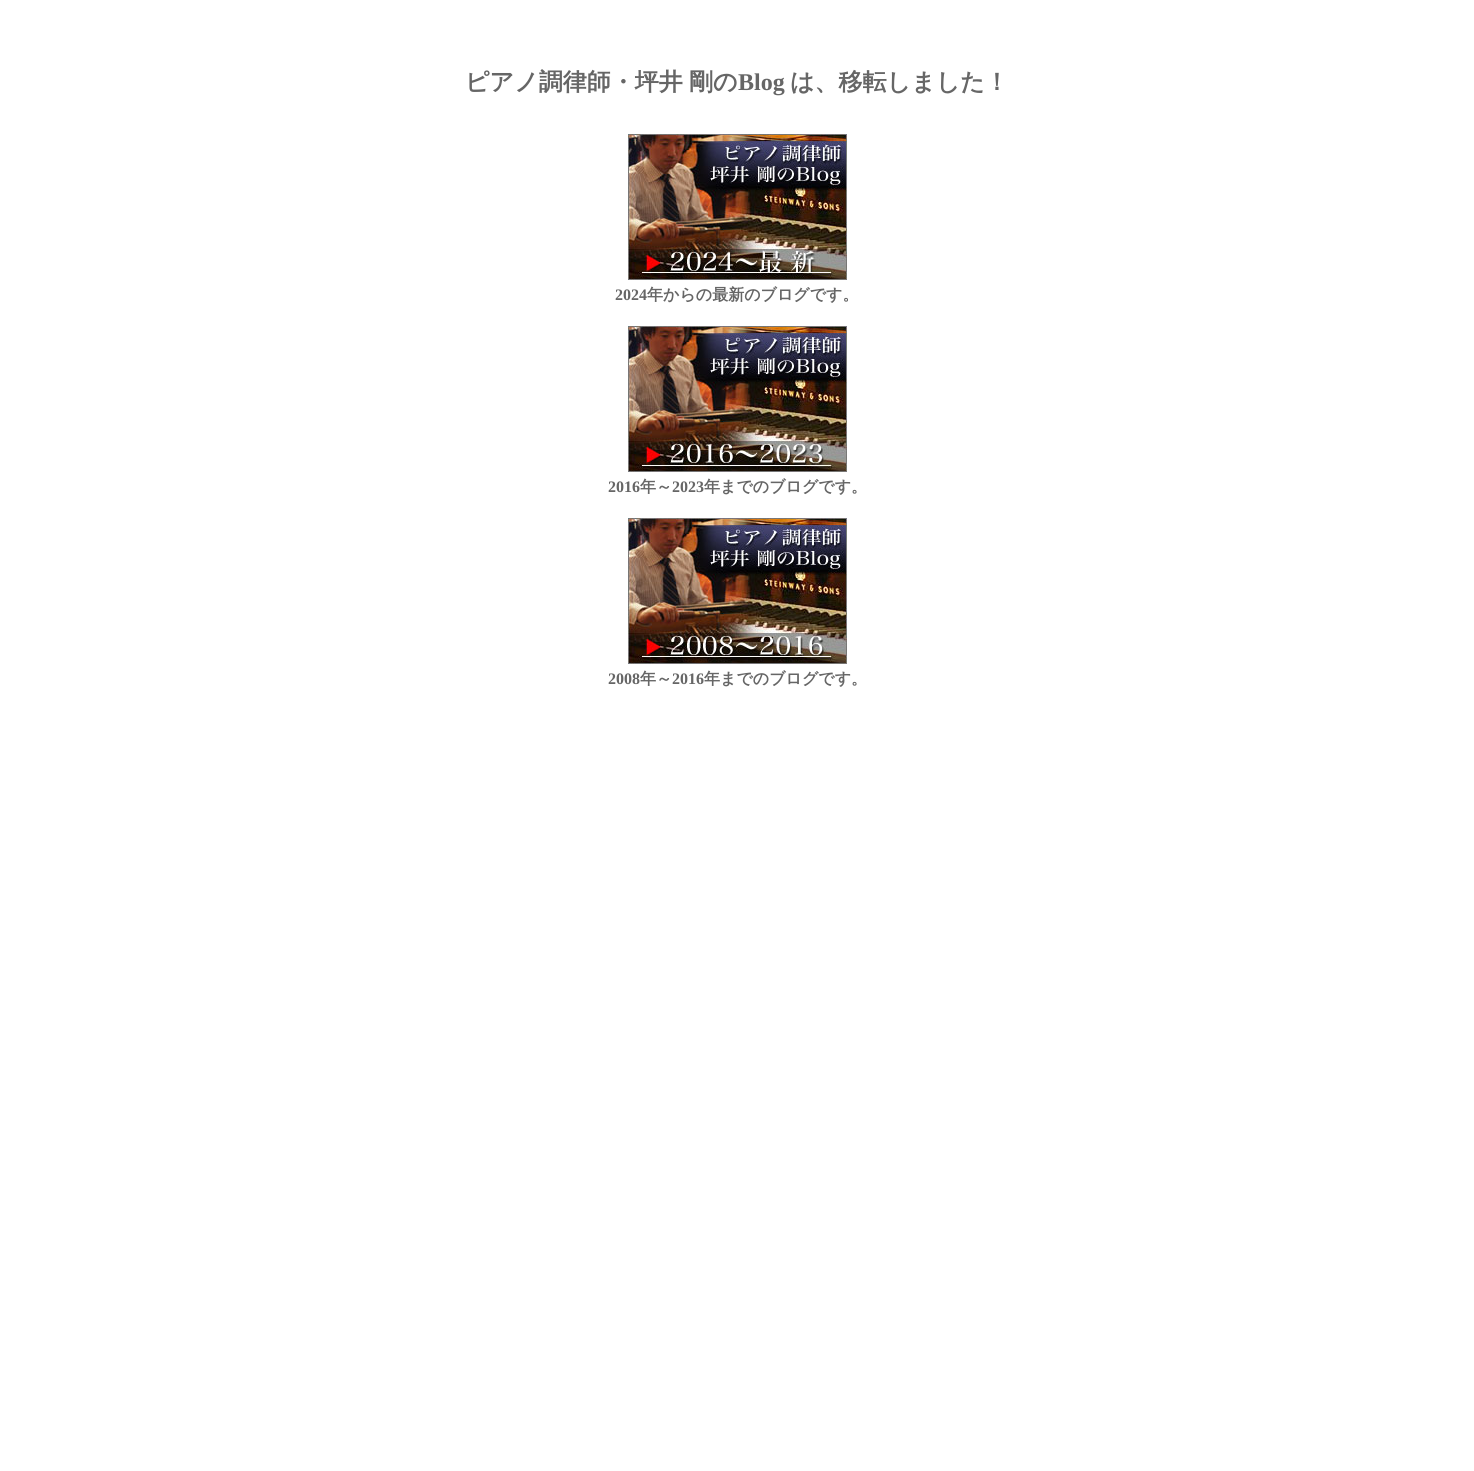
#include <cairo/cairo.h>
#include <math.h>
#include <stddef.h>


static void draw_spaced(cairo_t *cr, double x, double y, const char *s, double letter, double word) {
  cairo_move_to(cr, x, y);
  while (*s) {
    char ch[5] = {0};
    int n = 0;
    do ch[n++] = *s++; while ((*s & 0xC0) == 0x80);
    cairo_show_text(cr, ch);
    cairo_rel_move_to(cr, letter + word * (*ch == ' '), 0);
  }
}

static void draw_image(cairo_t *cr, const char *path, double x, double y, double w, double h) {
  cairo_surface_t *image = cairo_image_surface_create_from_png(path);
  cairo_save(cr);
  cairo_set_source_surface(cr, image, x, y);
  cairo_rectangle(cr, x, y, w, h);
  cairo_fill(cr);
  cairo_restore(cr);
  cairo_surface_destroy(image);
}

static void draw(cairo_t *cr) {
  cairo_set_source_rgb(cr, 1, 1, 1);
  cairo_paint(cr);
  draw_image(cr, "images/1.png", 628, 134, 219, 146);
  draw_image(cr, "images/2.png", 628, 326, 219, 146);
  draw_image(cr, "images/3.png", 628, 518, 219, 146);
  cairo_select_font_face(cr, "WenQuanYi Zen Hei", CAIRO_FONT_SLANT_NORMAL, CAIRO_FONT_WEIGHT_BOLD);
  cairo_set_font_size(cr, 24);
  cairo_set_source_rgb(cr, 102 / 255.0, 102 / 255.0, 102 / 255.0);
  draw_spaced(cr, 465, 90, "ピアノ調律師・坪井 剛の", 0, -1);
  cairo_select_font_face(cr, "Liberation Serif", CAIRO_FONT_SLANT_NORMAL, CAIRO_FONT_WEIGHT_BOLD);
  cairo_move_to(cr, 738, 90);
  cairo_show_text(cr, "Blog");
  cairo_select_font_face(cr, "WenQuanYi Zen Hei", CAIRO_FONT_SLANT_NORMAL, CAIRO_FONT_WEIGHT_BOLD);
  cairo_move_to(cr, 790, 90);
  cairo_show_text(cr, "は、移転しました！");
  cairo_select_font_face(cr, "Liberation Serif", CAIRO_FONT_SLANT_NORMAL, CAIRO_FONT_WEIGHT_BOLD);
  cairo_set_font_size(cr, 16);
  cairo_move_to(cr, 615, 300);
  cairo_show_text(cr, "2024");
  cairo_select_font_face(cr, "WenQuanYi Zen Hei", CAIRO_FONT_SLANT_NORMAL, CAIRO_FONT_WEIGHT_BOLD);
  cairo_move_to(cr, 647, 300);
  cairo_show_text(cr, "年からの最新のブログです。");
  cairo_select_font_face(cr, "Liberation Serif", CAIRO_FONT_SLANT_NORMAL, CAIRO_FONT_WEIGHT_BOLD);
  cairo_move_to(cr, 608, 492);
  cairo_show_text(cr, "2016");
  cairo_select_font_face(cr, "WenQuanYi Zen Hei", CAIRO_FONT_SLANT_NORMAL, CAIRO_FONT_WEIGHT_BOLD);
  cairo_move_to(cr, 640, 492);
  cairo_show_text(cr, "年～");
  cairo_select_font_face(cr, "Liberation Serif", CAIRO_FONT_SLANT_NORMAL, CAIRO_FONT_WEIGHT_BOLD);
  cairo_move_to(cr, 672, 492);
  cairo_show_text(cr, "2023");
  cairo_select_font_face(cr, "WenQuanYi Zen Hei", CAIRO_FONT_SLANT_NORMAL, CAIRO_FONT_WEIGHT_BOLD);
  cairo_move_to(cr, 704, 492);
  cairo_show_text(cr, "年までのブログです。");
  cairo_select_font_face(cr, "Liberation Serif", CAIRO_FONT_SLANT_NORMAL, CAIRO_FONT_WEIGHT_BOLD);
  cairo_move_to(cr, 608, 684);
  cairo_show_text(cr, "2008");
  cairo_select_font_face(cr, "WenQuanYi Zen Hei", CAIRO_FONT_SLANT_NORMAL, CAIRO_FONT_WEIGHT_BOLD);
  cairo_move_to(cr, 640, 684);
  cairo_show_text(cr, "年～");
  cairo_select_font_face(cr, "Liberation Serif", CAIRO_FONT_SLANT_NORMAL, CAIRO_FONT_WEIGHT_BOLD);
  cairo_move_to(cr, 672, 684);
  cairo_show_text(cr, "2016");
  cairo_select_font_face(cr, "WenQuanYi Zen Hei", CAIRO_FONT_SLANT_NORMAL, CAIRO_FONT_WEIGHT_BOLD);
  cairo_move_to(cr, 704, 684);
  cairo_show_text(cr, "年までのブログです。");
}

int main(void) {
  cairo_surface_t *surface = cairo_image_surface_create(CAIRO_FORMAT_RGB24, 1474, 1471);
  cairo_t *cr = cairo_create(surface);
  cairo_font_options_t *options = cairo_font_options_create();
  cairo_font_options_set_hint_metrics(options, CAIRO_HINT_METRICS_OFF);
  cairo_font_options_set_hint_style(options, CAIRO_HINT_STYLE_NONE);
  cairo_set_font_options(cr, options);
  cairo_set_miter_limit(cr, 4);
  draw(cr);
  cairo_surface_write_to_png(surface, "out.png");
  cairo_font_options_destroy(options);
  cairo_destroy(cr);
  cairo_surface_destroy(surface);
  return 0;
}
